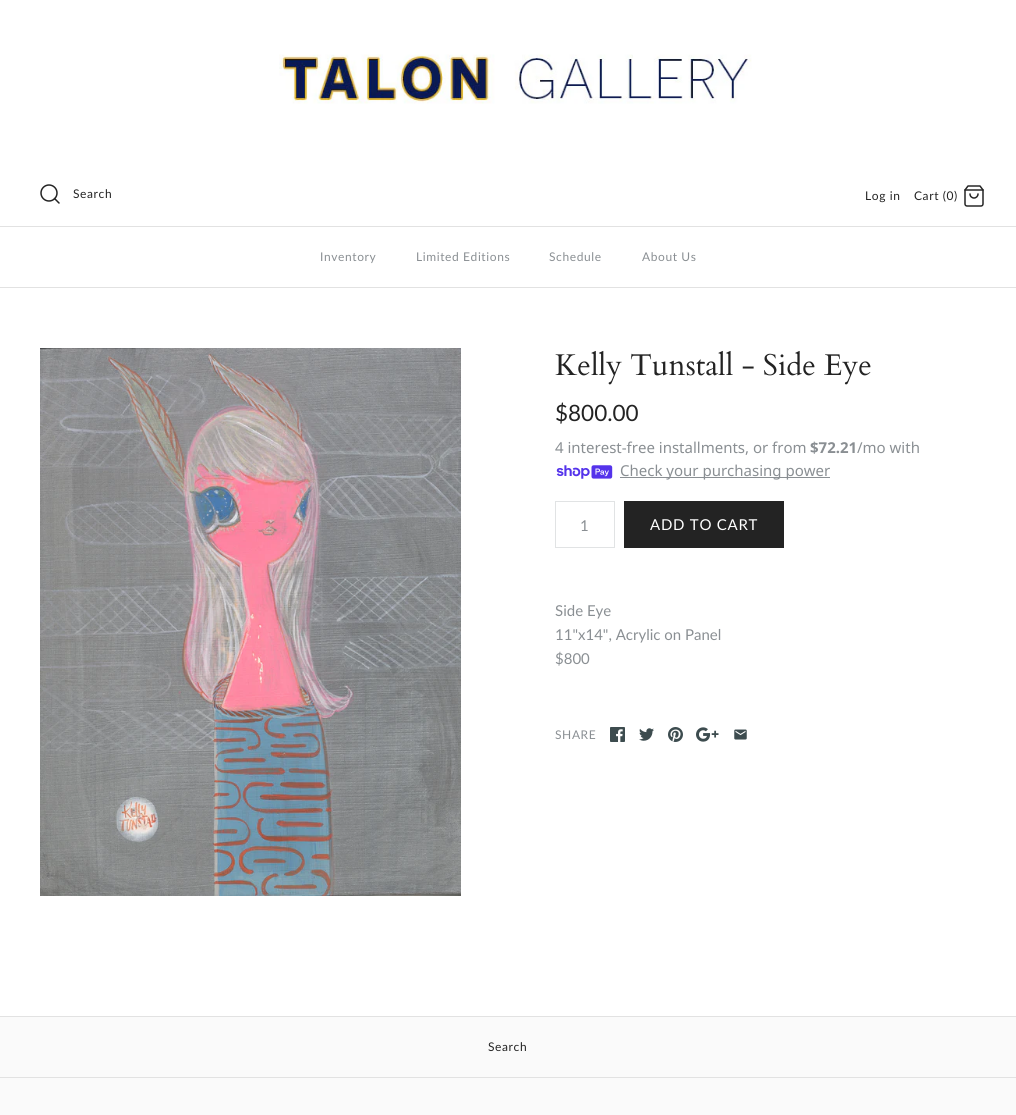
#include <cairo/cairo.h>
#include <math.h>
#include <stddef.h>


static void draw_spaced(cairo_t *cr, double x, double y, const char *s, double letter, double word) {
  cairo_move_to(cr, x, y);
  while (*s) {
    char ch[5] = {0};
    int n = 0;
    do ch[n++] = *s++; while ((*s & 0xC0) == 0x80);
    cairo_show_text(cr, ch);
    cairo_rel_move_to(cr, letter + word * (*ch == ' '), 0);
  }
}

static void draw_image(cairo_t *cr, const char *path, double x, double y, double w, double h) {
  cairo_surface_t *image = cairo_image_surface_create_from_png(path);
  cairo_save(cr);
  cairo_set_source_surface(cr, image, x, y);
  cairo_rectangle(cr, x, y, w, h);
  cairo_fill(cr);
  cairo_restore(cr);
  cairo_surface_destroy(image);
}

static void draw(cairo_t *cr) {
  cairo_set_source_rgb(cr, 1, 1, 1);
  cairo_paint(cr);
  draw_image(cr, "images/1.png", 279, 54, 473, 50);
  cairo_arc(cr, 49, 193, 8, 0, 2 * M_PI);
  cairo_set_source_rgb(cr, 35 / 255.0, 35 / 255.0, 35 / 255.0);
  cairo_set_line_width(cr, 1.5);
  cairo_stroke(cr);
  cairo_new_path(cr);
  cairo_move_to(cr, 59, 203);
  cairo_line_to(cr, 54.5, 198.5);
  cairo_set_line_cap(cr, CAIRO_LINE_CAP_ROUND);
  cairo_set_line_join(cr, CAIRO_LINE_JOIN_ROUND);
  cairo_stroke(cr);
  draw_image(cr, "images/2.png", 964, 185, 20, 22);
  cairo_set_source_rgb(cr, 226 / 255.0, 226 / 255.0, 226 / 255.0);
  cairo_rectangle(cr, 0, 287, 1016, 1);
  cairo_fill(cr);
  cairo_rectangle(cr, 0, 226, 1016, 1);
  cairo_fill(cr);
  draw_image(cr, "images/3.png", 40, 348, 421, 548);
  draw_image(cr, "images/4.png", 556, 465, 57, 14);
  cairo_set_source_rgb(cr, 138 / 255.0, 143 / 255.0, 147 / 255.0);
  cairo_rectangle(cr, 620, 477, 210, 1);
  cairo_fill(cr);
  cairo_rectangle(cr, 555.5, 501.5, 59, 46);
  cairo_set_source_rgb(cr, 225 / 255.0, 227 / 255.0, 228 / 255.0);
  cairo_set_line_width(cr, 1);
  cairo_set_line_cap(cr, CAIRO_LINE_CAP_BUTT);
  cairo_set_line_join(cr, CAIRO_LINE_JOIN_MITER);
  cairo_stroke(cr);
  cairo_set_source_rgb(cr, 35 / 255.0, 35 / 255.0, 35 / 255.0);
  cairo_rectangle(cr, 624, 501, 160, 47);
  cairo_fill(cr);
  draw_image(cr, "images/5.png", 610, 727, 15, 15);
  draw_image(cr, "images/6.png", 639, 728, 15, 13);
  draw_image(cr, "images/7.png", 668, 727, 15, 15);
  draw_image(cr, "images/8.png", 696, 727, 23, 15);
  draw_image(cr, "images/9.png", 734, 729, 13, 11);
  cairo_set_source_rgb(cr, 250 / 255.0, 250 / 255.0, 250 / 255.0);
  cairo_rectangle(cr, 0, 1017, 1016, 98);
  cairo_fill(cr);
  cairo_set_source_rgb(cr, 226 / 255.0, 226 / 255.0, 226 / 255.0);
  cairo_rectangle(cr, 0, 1016, 1016, 1);
  cairo_fill(cr);
  cairo_rectangle(cr, 0, 1077, 1016, 1);
  cairo_fill(cr);
  cairo_select_font_face(cr, "Lato", CAIRO_FONT_SLANT_NORMAL, CAIRO_FONT_WEIGHT_NORMAL);
  cairo_set_font_size(cr, 12);
  cairo_set_source_rgb(cr, 35 / 255.0, 35 / 255.0, 35 / 255.0);
  draw_spaced(cr, 73, 198, "Search", 0.6, 0);
  draw_spaced(cr, 865, 200, "Log in", 0.6, 0);
  draw_spaced(cr, 914, 200, "Cart (0)", 0.6, 0);
  cairo_set_source_rgb(cr, 138 / 255.0, 143 / 255.0, 147 / 255.0);
  draw_spaced(cr, 320, 261, "Inventory", 0.6, 0);
  draw_spaced(cr, 416, 261, "Limited Editions", 0.6, 0);
  draw_spaced(cr, 549, 261, "Schedule", 0.6, 0);
  draw_spaced(cr, 642, 261, "About Us", 0.6, 0);
  cairo_select_font_face(cr, "Cardo", CAIRO_FONT_SLANT_NORMAL, CAIRO_FONT_WEIGHT_NORMAL);
  cairo_set_font_size(cr, 30);
  cairo_set_source_rgb(cr, 35 / 255.0, 35 / 255.0, 35 / 255.0);
  cairo_move_to(cr, 555, 375);
  cairo_show_text(cr, "Kelly Tunstall - Side Eye");
  cairo_select_font_face(cr, "Lato", CAIRO_FONT_SLANT_NORMAL, CAIRO_FONT_WEIGHT_NORMAL);
  cairo_set_font_size(cr, 22.5);
  cairo_move_to(cr, 555, 421);
  cairo_show_text(cr, "$800.00");
  cairo_select_font_face(cr, "Noto Sans", CAIRO_FONT_SLANT_NORMAL, CAIRO_FONT_WEIGHT_NORMAL);
  cairo_set_font_size(cr, 15);
  cairo_set_source_rgb(cr, 138 / 255.0, 143 / 255.0, 147 / 255.0);
  cairo_move_to(cr, 555, 453);
  cairo_show_text(cr, "4 interest-free installments, or from");
  cairo_select_font_face(cr, "Noto Sans", CAIRO_FONT_SLANT_NORMAL, CAIRO_FONT_WEIGHT_BOLD);
  cairo_move_to(cr, 810, 453);
  cairo_show_text(cr, "$72.21");
  cairo_select_font_face(cr, "Noto Sans", CAIRO_FONT_SLANT_NORMAL, CAIRO_FONT_WEIGHT_NORMAL);
  cairo_move_to(cr, 857, 453);
  cairo_show_text(cr, "/mo with");
  cairo_move_to(cr, 620, 476);
  cairo_show_text(cr, "Check your purchasing power");
  cairo_select_font_face(cr, "Lato", CAIRO_FONT_SLANT_NORMAL, CAIRO_FONT_WEIGHT_NORMAL);
  cairo_move_to(cr, 580, 531);
  cairo_show_text(cr, "1");
  cairo_set_source_rgb(cr, 1, 1, 1);
  draw_spaced(cr, 650, 530, "ADD TO CART", 0.75, 0);
  cairo_set_source_rgb(cr, 138 / 255.0, 143 / 255.0, 147 / 255.0);
  cairo_move_to(cr, 555, 616);
  cairo_show_text(cr, "Side Eye");
  cairo_move_to(cr, 555, 640);
  cairo_show_text(cr, "11\"x14\", Acrylic on Panel");
  cairo_move_to(cr, 555, 664);
  cairo_show_text(cr, "$800");
  cairo_set_font_size(cr, 12);
  draw_spaced(cr, 555, 739, "SHARE", 0.6, 0);
  cairo_set_source_rgb(cr, 35 / 255.0, 35 / 255.0, 35 / 255.0);
  draw_spaced(cr, 488, 1051, "Search", 0.6, 0);
}

int main(void) {
  cairo_surface_t *surface = cairo_image_surface_create(CAIRO_FORMAT_RGB24, 1016, 1115);
  cairo_t *cr = cairo_create(surface);
  cairo_font_options_t *options = cairo_font_options_create();
  cairo_font_options_set_hint_metrics(options, CAIRO_HINT_METRICS_OFF);
  cairo_font_options_set_hint_style(options, CAIRO_HINT_STYLE_NONE);
  cairo_set_font_options(cr, options);
  cairo_set_miter_limit(cr, 4);
  draw(cr);
  cairo_surface_write_to_png(surface, "out.png");
  cairo_font_options_destroy(options);
  cairo_destroy(cr);
  cairo_surface_destroy(surface);
  return 0;
}
